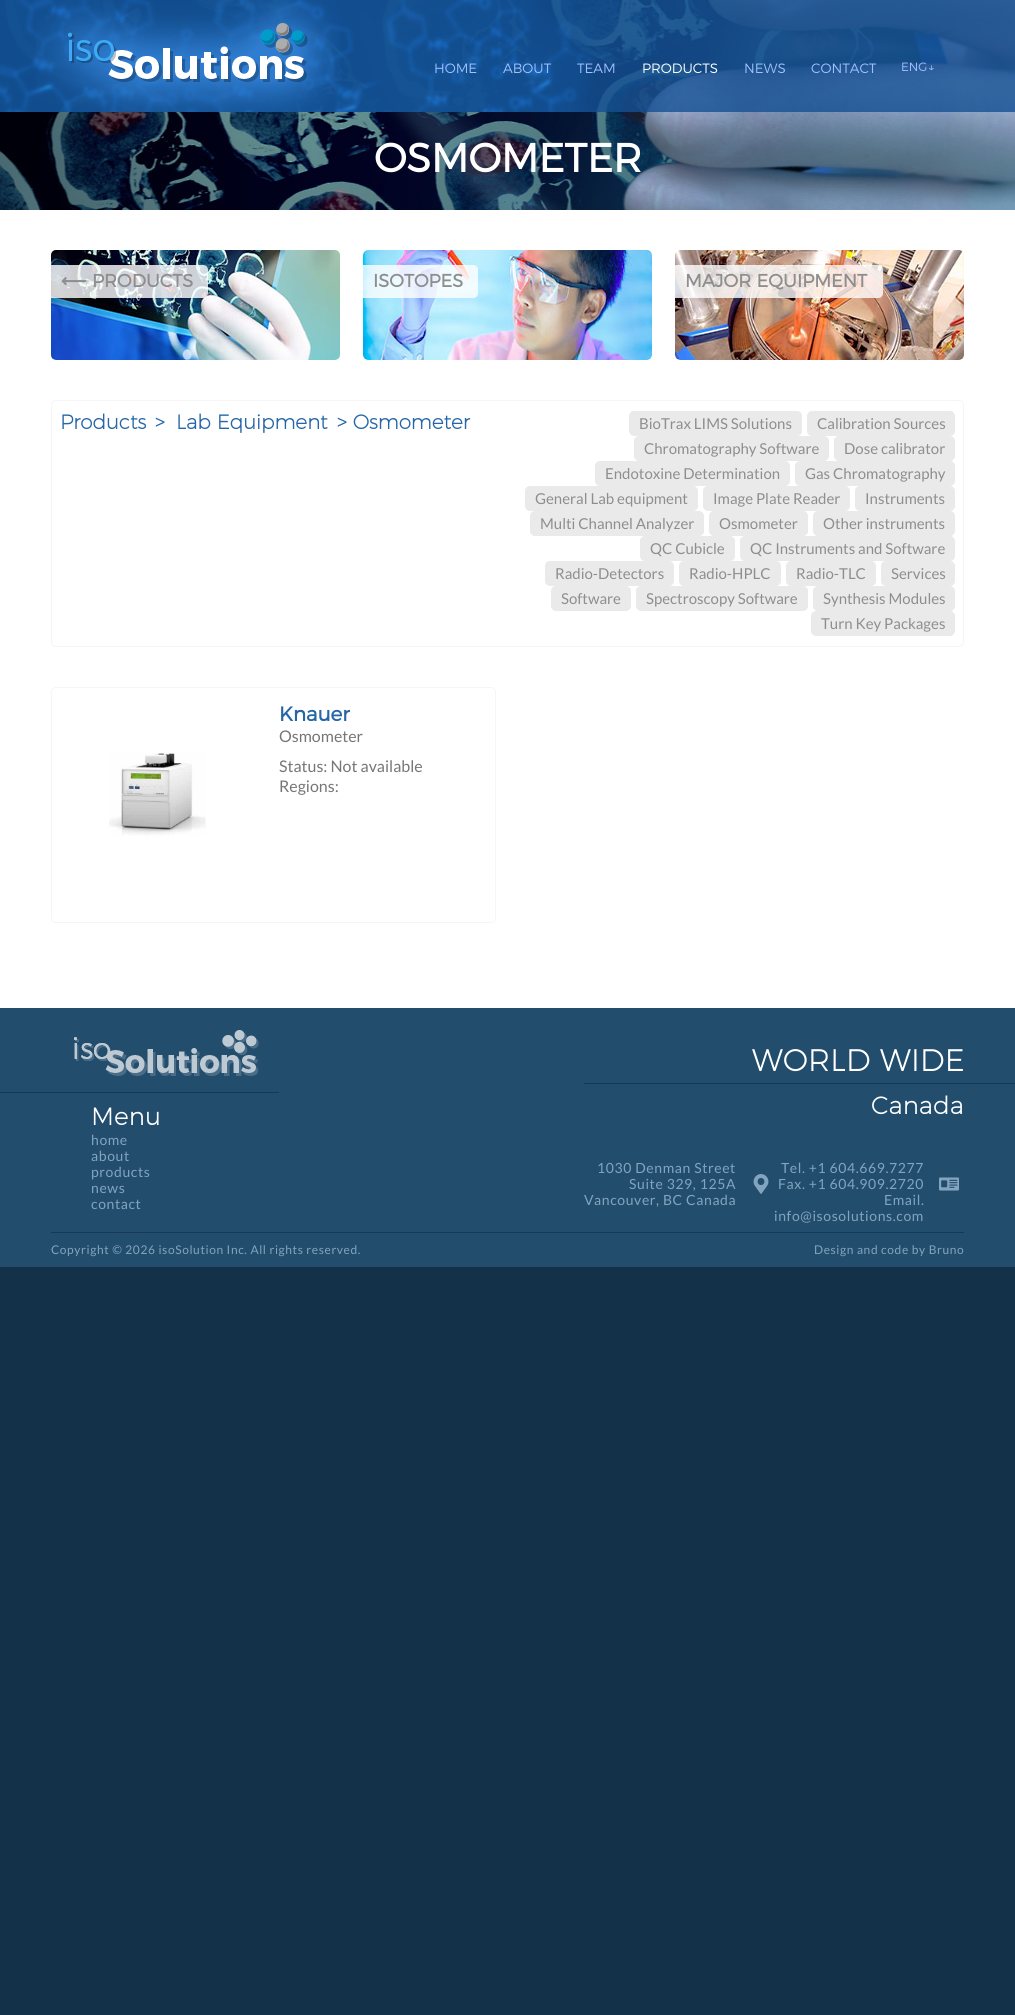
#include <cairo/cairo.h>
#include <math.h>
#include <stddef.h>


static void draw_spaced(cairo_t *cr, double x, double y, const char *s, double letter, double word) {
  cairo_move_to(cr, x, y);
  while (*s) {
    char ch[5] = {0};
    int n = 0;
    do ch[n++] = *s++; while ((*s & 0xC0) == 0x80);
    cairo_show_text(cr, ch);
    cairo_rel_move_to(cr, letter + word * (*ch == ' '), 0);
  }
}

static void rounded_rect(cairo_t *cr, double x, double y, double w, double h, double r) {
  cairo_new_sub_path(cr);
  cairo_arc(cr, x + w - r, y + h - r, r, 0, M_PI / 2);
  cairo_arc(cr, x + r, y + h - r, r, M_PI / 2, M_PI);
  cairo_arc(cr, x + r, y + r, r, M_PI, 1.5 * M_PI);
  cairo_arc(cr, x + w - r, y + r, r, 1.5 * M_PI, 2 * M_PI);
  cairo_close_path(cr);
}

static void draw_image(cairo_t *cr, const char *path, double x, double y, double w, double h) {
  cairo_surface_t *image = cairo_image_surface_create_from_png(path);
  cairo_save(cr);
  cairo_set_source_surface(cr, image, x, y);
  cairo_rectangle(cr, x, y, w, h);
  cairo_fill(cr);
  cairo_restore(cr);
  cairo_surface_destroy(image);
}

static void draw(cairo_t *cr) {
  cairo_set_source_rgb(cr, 19 / 255.0, 50 / 255.0, 74 / 255.0);
  cairo_paint(cr);
  cairo_set_source_rgb(cr, 1, 1, 1);
  cairo_rectangle(cr, 0, 210, 1015, 798);
  cairo_fill(cr);
  draw_image(cr, "images/1.png", 0, 0, 1015, 210);
  cairo_set_source_rgba(cr, 21 / 255.0, 80 / 255.0, 147 / 255.0, 0.8);
  cairo_rectangle(cr, 0, 0, 1015, 112);
  cairo_fill(cr);
  draw_image(cr, "images/2.png", 0, 0, 597, 112);
  draw_image(cr, "images/3.png", 36, 0, 305, 112);
  draw_image(cr, "images/4.png", 51, 250, 289, 110);
  cairo_set_source_rgba(cr, 1, 1, 1, 0.8);
  cairo_new_path(cr);
  cairo_move_to(cr, 51, 265);
  cairo_line_to(cr, 203, 265);
  cairo_curve_to(cr, 206, 265, 208, 267, 208, 270);
  cairo_line_to(cr, 208, 293);
  cairo_curve_to(cr, 208, 296, 206, 298, 203, 298);
  cairo_line_to(cr, 51, 298);
  cairo_close_path(cr);
  cairo_fill(cr);
  draw_image(cr, "images/5.png", 363, 250, 289, 110);
  cairo_new_path(cr);
  cairo_move_to(cr, 363, 265);
  cairo_line_to(cr, 473, 265);
  cairo_curve_to(cr, 476, 265, 478, 267, 478, 270);
  cairo_line_to(cr, 478, 293);
  cairo_curve_to(cr, 478, 296, 476, 298, 473, 298);
  cairo_line_to(cr, 363, 298);
  cairo_close_path(cr);
  cairo_fill(cr);
  draw_image(cr, "images/6.png", 675, 250, 289, 110);
  cairo_new_path(cr);
  cairo_move_to(cr, 675, 265);
  cairo_line_to(cr, 878, 265);
  cairo_curve_to(cr, 881, 265, 883, 267, 883, 270);
  cairo_line_to(cr, 883, 293);
  cairo_curve_to(cr, 883, 296, 881, 298, 878, 298);
  cairo_line_to(cr, 675, 298);
  cairo_close_path(cr);
  cairo_fill(cr);
  rounded_rect(cr, 51.5, 400.5, 912, 246, 4.5);
  cairo_set_source_rgb(cr, 245 / 255.0, 245 / 255.0, 245 / 255.0);
  cairo_set_line_width(cr, 1);
  cairo_stroke(cr);
  cairo_set_source_rgb(cr, 234 / 255.0, 234 / 255.0, 234 / 255.0);
  rounded_rect(cr, 629, 411, 173, 25, 5);
  cairo_fill(cr);
  rounded_rect(cr, 807, 411, 148, 25, 5);
  cairo_fill(cr);
  rounded_rect(cr, 634, 436, 195, 25, 5);
  cairo_fill(cr);
  rounded_rect(cr, 834, 436, 121, 25, 5);
  cairo_fill(cr);
  rounded_rect(cr, 595, 461, 195, 25, 5);
  cairo_fill(cr);
  rounded_rect(cr, 795, 461, 160, 25, 5);
  cairo_fill(cr);
  rounded_rect(cr, 525, 486, 173, 25, 5);
  cairo_fill(cr);
  rounded_rect(cr, 703, 486, 147, 25, 5);
  cairo_fill(cr);
  rounded_rect(cr, 855, 486, 100, 25, 5);
  cairo_fill(cr);
  rounded_rect(cr, 530, 511, 174, 25, 5);
  cairo_fill(cr);
  rounded_rect(cr, 709, 511, 99, 25, 5);
  cairo_fill(cr);
  rounded_rect(cr, 813, 511, 142, 25, 5);
  cairo_fill(cr);
  rounded_rect(cr, 640, 536, 95, 25, 5);
  cairo_fill(cr);
  rounded_rect(cr, 740, 536, 215, 25, 5);
  cairo_fill(cr);
  rounded_rect(cr, 545, 561, 129, 25, 5);
  cairo_fill(cr);
  rounded_rect(cr, 679, 561, 102, 25, 5);
  cairo_fill(cr);
  rounded_rect(cr, 786, 561, 90, 25, 5);
  cairo_fill(cr);
  rounded_rect(cr, 881, 561, 74, 25, 5);
  cairo_fill(cr);
  rounded_rect(cr, 551, 586, 80, 25, 5);
  cairo_fill(cr);
  rounded_rect(cr, 636, 586, 172, 25, 5);
  cairo_fill(cr);
  rounded_rect(cr, 813, 586, 142, 25, 5);
  cairo_fill(cr);
  rounded_rect(cr, 811, 611, 144, 25, 5);
  cairo_fill(cr);
  rounded_rect(cr, 51.5, 687.5, 444, 235, 4.5);
  cairo_set_source_rgb(cr, 245 / 255.0, 245 / 255.0, 245 / 255.0);
  cairo_stroke(cr);
  draw_image(cr, "images/7.png", 109, 753, 97, 83);
  cairo_set_source_rgb(cr, 35 / 255.0, 77 / 255.0, 109 / 255.0);
  cairo_rectangle(cr, 0, 1008, 1015, 259);
  cairo_fill(cr);
  draw_image(cr, "images/8.png", 74, 1030, 185, 46);
  cairo_set_source_rgb(cr, 22 / 255.0, 58 / 255.0, 86 / 255.0);
  cairo_rectangle(cr, 0, 1092, 279, 1);
  cairo_fill(cr);
  cairo_rectangle(cr, 584, 1083, 431, 1);
  cairo_fill(cr);
  draw_image(cr, "images/9.png", 753, 1174, 16, 20);
  draw_image(cr, "images/10.png", 939, 1177, 20, 14);
  cairo_rectangle(cr, 51, 1232, 913, 1);
  cairo_fill(cr);
  cairo_select_font_face(cr, "Montserrat Light", CAIRO_FONT_SLANT_NORMAL, CAIRO_FONT_WEIGHT_NORMAL);
  cairo_set_font_size(cr, 13.5);
  cairo_set_source_rgb(cr, 160 / 255.0, 192 / 255.0, 1);
  cairo_move_to(cr, 434, 73);
  cairo_show_text(cr, "HOME");
  cairo_move_to(cr, 503, 73);
  cairo_show_text(cr, "ABOUT");
  cairo_move_to(cr, 577, 73);
  cairo_show_text(cr, "TEAM");
  cairo_set_source_rgb(cr, 1, 1, 1);
  cairo_move_to(cr, 642, 73);
  cairo_show_text(cr, "PRODUCTS");
  cairo_set_source_rgb(cr, 160 / 255.0, 192 / 255.0, 1);
  cairo_move_to(cr, 744, 73);
  cairo_show_text(cr, "NEWS");
  cairo_move_to(cr, 811, 73);
  cairo_show_text(cr, "CONTACT");
  cairo_set_font_size(cr, 12);
  cairo_move_to(cr, 901, 71);
  cairo_show_text(cr, "ENG↓");
  cairo_select_font_face(cr, "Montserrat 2", CAIRO_FONT_SLANT_NORMAL, CAIRO_FONT_WEIGHT_BOLD);
  cairo_set_font_size(cr, 40);
  cairo_set_source_rgb(cr, 1, 1, 1);
  cairo_move_to(cr, 374, 172);
  cairo_show_text(cr, "OSMOMETER");
  cairo_select_font_face(cr, "DejaVu Sans", CAIRO_FONT_SLANT_NORMAL, CAIRO_FONT_WEIGHT_BOLD);
  cairo_set_font_size(cr, 18);
  cairo_set_source_rgb(cr, 142 / 255.0, 142 / 255.0, 142 / 255.0);
  cairo_move_to(cr, 61, 287);
  cairo_show_text(cr, "⟵");
  cairo_select_font_face(cr, "Montserrat 2", CAIRO_FONT_SLANT_NORMAL, CAIRO_FONT_WEIGHT_BOLD);
  cairo_move_to(cr, 92, 287);
  cairo_show_text(cr, "PRODUCTS");
  cairo_move_to(cr, 373, 287);
  cairo_show_text(cr, "ISOTOPES");
  cairo_move_to(cr, 685, 287);
  cairo_show_text(cr, "MAJOR EQUIPMENT");
  cairo_select_font_face(cr, "Montserrat", CAIRO_FONT_SLANT_NORMAL, CAIRO_FONT_WEIGHT_BOLD);
  cairo_set_font_size(cr, 20);
  cairo_set_source_rgb(cr, 38 / 255.0, 102 / 255.0, 167 / 255.0);
  cairo_move_to(cr, 60, 429);
  cairo_show_text(cr, "Products");
  cairo_move_to(cr, 155, 429);
  cairo_show_text(cr, ">");
  cairo_move_to(cr, 176, 429);
  cairo_show_text(cr, "Lab Equipment");
  cairo_move_to(cr, 337, 429);
  cairo_show_text(cr, "> Osmometer");
  cairo_select_font_face(cr, "Lato", CAIRO_FONT_SLANT_NORMAL, CAIRO_FONT_WEIGHT_NORMAL);
  cairo_set_font_size(cr, 15);
  cairo_set_source_rgb(cr, 142 / 255.0, 142 / 255.0, 142 / 255.0);
  cairo_move_to(cr, 639, 429);
  cairo_show_text(cr, "BioTrax LIMS Solutions");
  cairo_move_to(cr, 817, 429);
  cairo_show_text(cr, "Calibration Sources");
  cairo_move_to(cr, 644, 454);
  cairo_show_text(cr, "Chromatography Software");
  cairo_move_to(cr, 844, 454);
  cairo_show_text(cr, "Dose calibrator");
  cairo_move_to(cr, 605, 479);
  cairo_show_text(cr, "Endotoxine Determination");
  cairo_move_to(cr, 805, 479);
  cairo_show_text(cr, "Gas Chromatography");
  cairo_move_to(cr, 535, 504);
  cairo_show_text(cr, "General Lab equipment");
  cairo_move_to(cr, 713, 504);
  cairo_show_text(cr, "Image Plate Reader");
  cairo_move_to(cr, 865, 504);
  cairo_show_text(cr, "Instruments");
  cairo_move_to(cr, 540, 529);
  cairo_show_text(cr, "Multi Channel Analyzer");
  cairo_move_to(cr, 719, 529);
  cairo_show_text(cr, "Osmometer");
  cairo_move_to(cr, 823, 529);
  cairo_show_text(cr, "Other instruments");
  cairo_move_to(cr, 650, 554);
  cairo_show_text(cr, "QC Cubicle");
  cairo_move_to(cr, 750, 554);
  cairo_show_text(cr, "QC Instruments and Software");
  cairo_move_to(cr, 555, 579);
  cairo_show_text(cr, "Radio-Detectors");
  cairo_move_to(cr, 689, 579);
  cairo_show_text(cr, "Radio-HPLC");
  cairo_move_to(cr, 796, 579);
  cairo_show_text(cr, "Radio-TLC");
  cairo_move_to(cr, 891, 579);
  cairo_show_text(cr, "Services");
  cairo_move_to(cr, 561, 604);
  cairo_show_text(cr, "Software");
  cairo_move_to(cr, 646, 604);
  cairo_show_text(cr, "Spectroscopy Software");
  cairo_move_to(cr, 823, 604);
  cairo_show_text(cr, "Synthesis Modules");
  cairo_move_to(cr, 821, 629);
  cairo_show_text(cr, "Turn Key Packages");
  cairo_select_font_face(cr, "Montserrat 2", CAIRO_FONT_SLANT_NORMAL, CAIRO_FONT_WEIGHT_BOLD);
  cairo_set_font_size(cr, 20);
  cairo_set_source_rgb(cr, 38 / 255.0, 102 / 255.0, 167 / 255.0);
  cairo_move_to(cr, 279, 721);
  cairo_show_text(cr, "Knauer");
  cairo_select_font_face(cr, "Lato", CAIRO_FONT_SLANT_NORMAL, CAIRO_FONT_WEIGHT_NORMAL);
  cairo_set_font_size(cr, 16);
  cairo_set_source_rgb(cr, 118 / 255.0, 118 / 255.0, 118 / 255.0);
  cairo_move_to(cr, 279, 742);
  cairo_show_text(cr, "Osmometer");
  cairo_move_to(cr, 279, 772);
  cairo_show_text(cr, "Status: Not available");
  cairo_move_to(cr, 279, 792);
  cairo_show_text(cr, "Regions:");
  cairo_select_font_face(cr, "Montserrat", CAIRO_FONT_SLANT_NORMAL, CAIRO_FONT_WEIGHT_BOLD);
  cairo_set_font_size(cr, 24);
  cairo_set_source_rgb(cr, 1, 1, 1);
  draw_spaced(cr, 91, 1125, "Menu", 0.6, 0);
  cairo_select_font_face(cr, "Lato", CAIRO_FONT_SLANT_NORMAL, CAIRO_FONT_WEIGHT_NORMAL);
  cairo_set_font_size(cr, 14);
  cairo_set_source_rgb(cr, 129 / 255.0, 164 / 255.0, 191 / 255.0);
  draw_spaced(cr, 91, 1145, "home", 0.6, 0);
  draw_spaced(cr, 91, 1161, "about", 0.6, 0);
  draw_spaced(cr, 91, 1177, "products", 0.6, 0);
  draw_spaced(cr, 91, 1193, "news", 0.6, 0);
  draw_spaced(cr, 91, 1209, "contact", 0.6, 0);
  cairo_select_font_face(cr, "Montserrat", CAIRO_FONT_SLANT_NORMAL, CAIRO_FONT_WEIGHT_BOLD);
  cairo_set_font_size(cr, 30);
  cairo_set_source_rgb(cr, 1, 1, 1);
  draw_spaced(cr, 752, 1071, "WORLD WIDE", 0.6, 0);
  cairo_set_font_size(cr, 24);
  draw_spaced(cr, 871, 1114, "Canada", 0.6, 0);
  cairo_select_font_face(cr, "Lato", CAIRO_FONT_SLANT_NORMAL, CAIRO_FONT_WEIGHT_NORMAL);
  cairo_set_font_size(cr, 14);
  cairo_set_source_rgb(cr, 129 / 255.0, 164 / 255.0, 191 / 255.0);
  draw_spaced(cr, 597, 1173, "1030 Denman Street", 0.6, 0);
  draw_spaced(cr, 629, 1189, "Suite 329, 125A", 0.6, 0);
  draw_spaced(cr, 584, 1205, "Vancouver, BC Canada", 0.6, 0);
  draw_spaced(cr, 781, 1173, "Tel. +1 604.669.7277", 0.6, 0);
  draw_spaced(cr, 778, 1189, "Fax. +1 604.909.2720", 0.6, 0);
  draw_spaced(cr, 884, 1205, "Email.", 0.6, 0);
  draw_spaced(cr, 774, 1221, "info@isosolutions.com", 0.6, 0);
  cairo_set_font_size(cr, 12);
  draw_spaced(cr, 51, 1254, "Copyright © 2026 isoSolution Inc. All rights reserved.", 0.6, 0);
  draw_spaced(cr, 814, 1254, "Design and code by Bruno", 0.6, 0);
}

int main(void) {
  cairo_surface_t *surface = cairo_image_surface_create(CAIRO_FORMAT_RGB24, 1015, 2015);
  cairo_t *cr = cairo_create(surface);
  cairo_font_options_t *options = cairo_font_options_create();
  cairo_font_options_set_hint_metrics(options, CAIRO_HINT_METRICS_OFF);
  cairo_font_options_set_hint_style(options, CAIRO_HINT_STYLE_NONE);
  cairo_set_font_options(cr, options);
  cairo_set_miter_limit(cr, 4);
  draw(cr);
  cairo_surface_write_to_png(surface, "out.png");
  cairo_font_options_destroy(options);
  cairo_destroy(cr);
  cairo_surface_destroy(surface);
  return 0;
}
